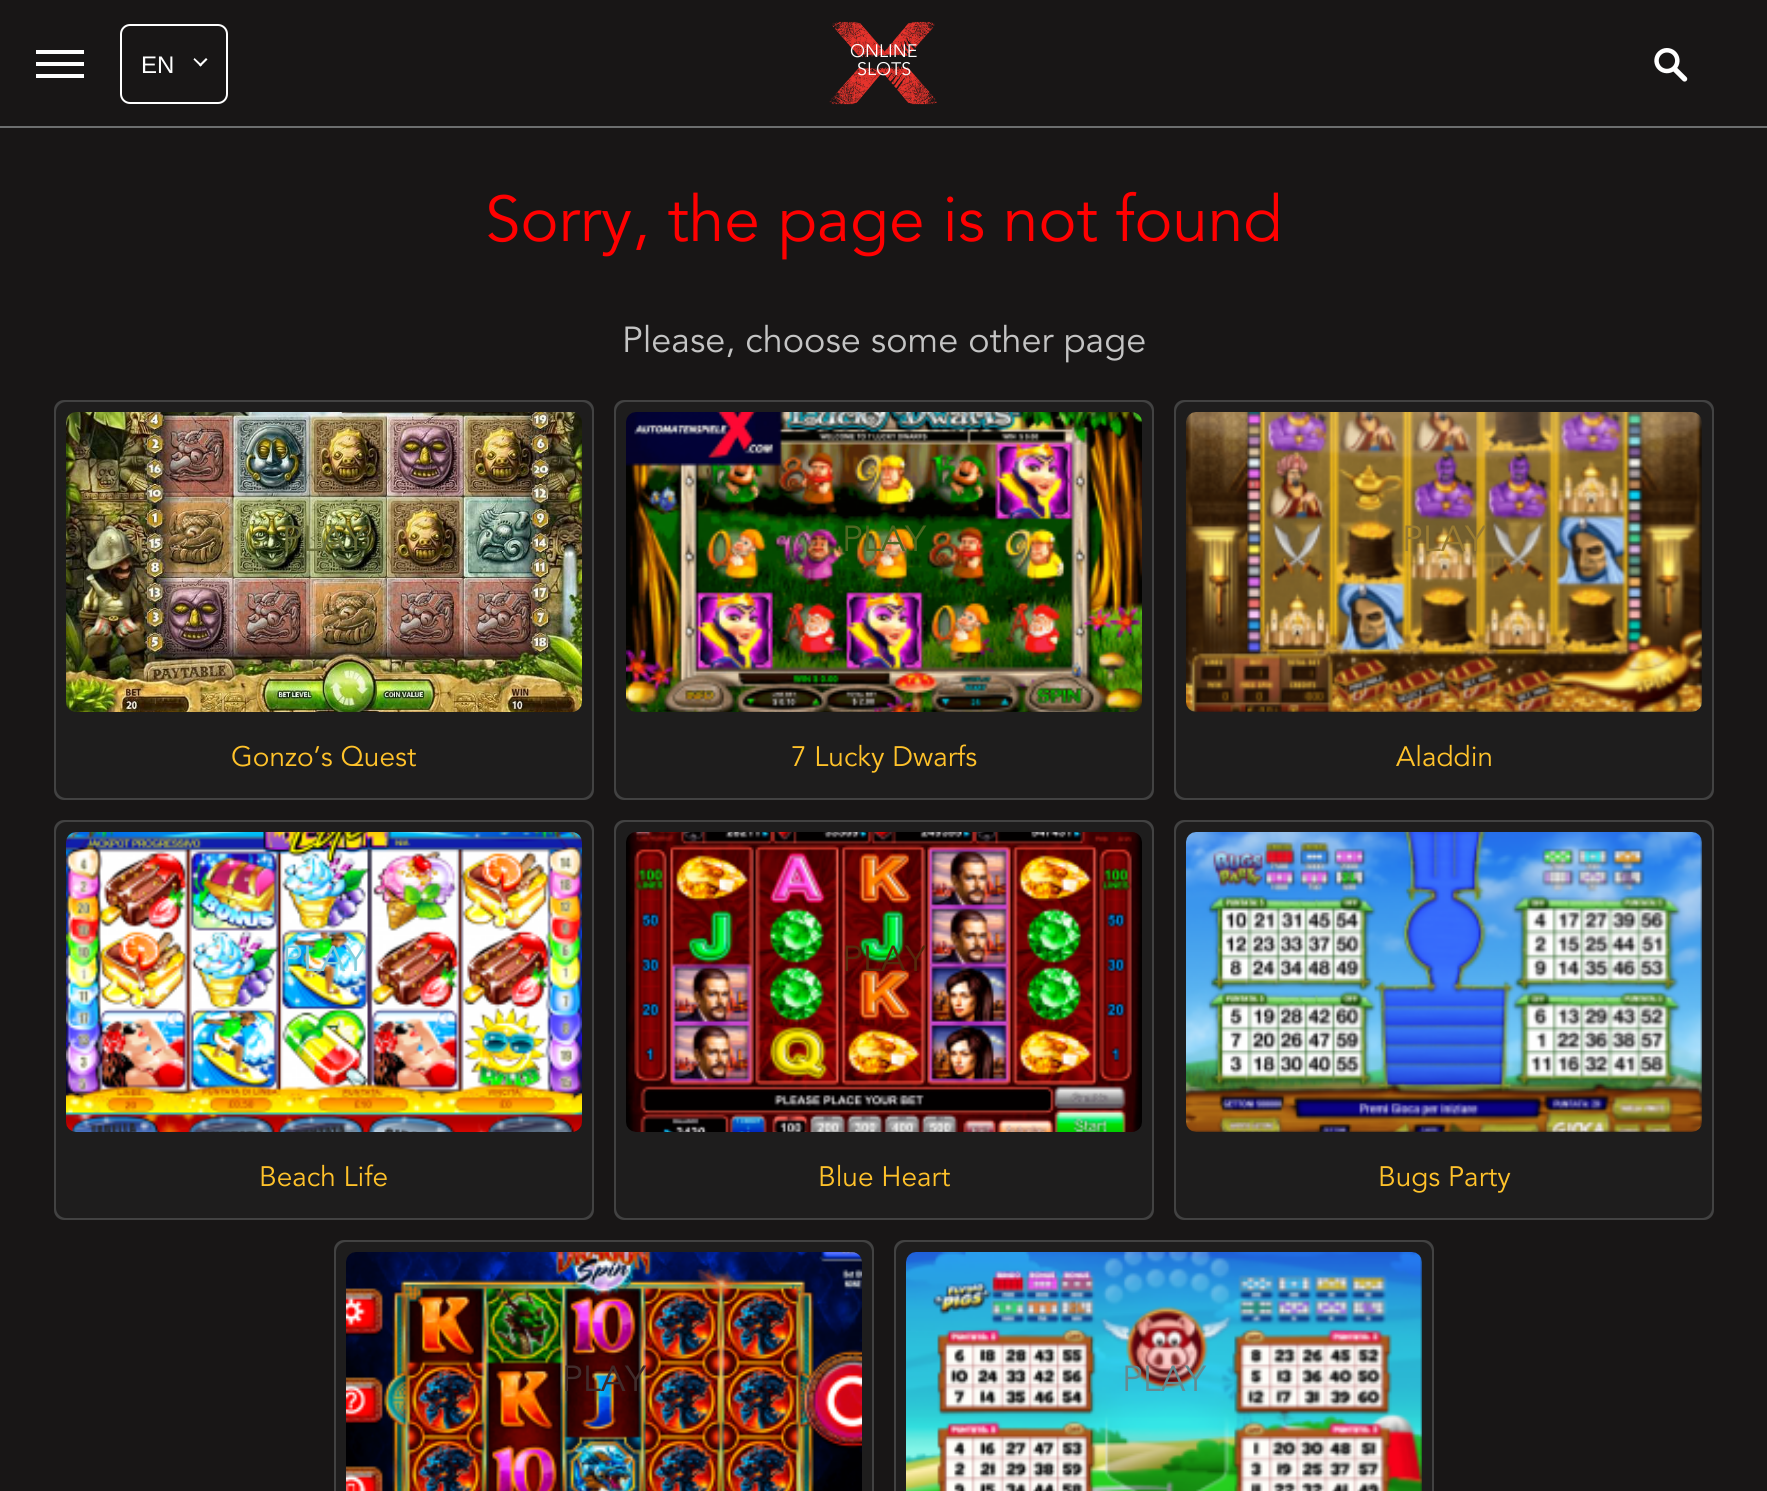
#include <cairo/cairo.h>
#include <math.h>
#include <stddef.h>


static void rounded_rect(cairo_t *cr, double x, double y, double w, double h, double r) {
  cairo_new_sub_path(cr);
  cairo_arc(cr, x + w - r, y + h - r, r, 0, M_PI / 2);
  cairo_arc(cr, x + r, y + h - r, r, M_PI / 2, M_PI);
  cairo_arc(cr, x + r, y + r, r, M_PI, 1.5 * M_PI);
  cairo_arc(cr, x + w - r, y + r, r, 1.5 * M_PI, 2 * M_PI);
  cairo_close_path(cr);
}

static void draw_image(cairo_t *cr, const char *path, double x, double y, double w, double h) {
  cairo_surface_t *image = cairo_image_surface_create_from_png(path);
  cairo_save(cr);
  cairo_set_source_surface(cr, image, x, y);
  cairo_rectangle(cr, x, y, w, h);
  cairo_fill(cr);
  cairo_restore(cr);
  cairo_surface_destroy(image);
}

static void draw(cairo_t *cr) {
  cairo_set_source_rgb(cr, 24 / 255.0, 22 / 255.0, 22 / 255.0);
  cairo_paint(cr);
  cairo_set_source_rgb(cr, 108 / 255.0, 110 / 255.0, 111 / 255.0);
  cairo_rectangle(cr, 0, 126, 1767, 2);
  cairo_fill(cr);
  cairo_set_source_rgb(cr, 1, 1, 1);
  cairo_rectangle(cr, 36, 50, 48, 4);
  cairo_fill(cr);
  cairo_rectangle(cr, 36, 62, 48, 4);
  cairo_fill(cr);
  cairo_rectangle(cr, 36, 74, 48, 4);
  cairo_fill(cr);
  rounded_rect(cr, 121, 25, 106, 78, 9);
  cairo_stroke(cr);
  cairo_new_path(cr);
  cairo_move_to(cr, 206, 58);
  cairo_line_to(cr, 207.5, 59.5);
  cairo_line_to(cr, 200.5, 66.5);
  cairo_line_to(cr, 199, 65);
  cairo_close_path(cr);
  cairo_fill(cr);
  cairo_new_path(cr);
  cairo_move_to(cr, 194.5, 58);
  cairo_line_to(cr, 202, 65);
  cairo_line_to(cr, 200.5, 66.5);
  cairo_line_to(cr, 193.5, 59.5);
  cairo_close_path(cr);
  cairo_fill(cr);
  draw_image(cr, "images/1.png", 1654, 48, 34, 34);
  draw_image(cr, "images/2.png", 829, 21, 108, 84);
  cairo_set_source_rgb(cr, 66 / 255.0, 66 / 255.0, 66 / 255.0);
  rounded_rect(cr, 54, 400, 540, 400, 10);
  cairo_fill(cr);
  cairo_set_source_rgb(cr, 30 / 255.0, 29 / 255.0, 29 / 255.0);
  rounded_rect(cr, 56, 402, 536, 396, 10);
  cairo_fill(cr);
  draw_image(cr, "images/3.png", 66, 412, 516, 300);
  cairo_set_source_rgb(cr, 66 / 255.0, 66 / 255.0, 66 / 255.0);
  rounded_rect(cr, 614, 400, 540, 400, 10);
  cairo_fill(cr);
  cairo_set_source_rgb(cr, 30 / 255.0, 29 / 255.0, 29 / 255.0);
  rounded_rect(cr, 616, 402, 536, 396, 10);
  cairo_fill(cr);
  draw_image(cr, "images/4.png", 626, 412, 516, 300);
  cairo_set_source_rgb(cr, 66 / 255.0, 66 / 255.0, 66 / 255.0);
  rounded_rect(cr, 1174, 400, 540, 400, 10);
  cairo_fill(cr);
  cairo_set_source_rgb(cr, 30 / 255.0, 29 / 255.0, 29 / 255.0);
  rounded_rect(cr, 1176, 402, 536, 396, 10);
  cairo_fill(cr);
  draw_image(cr, "images/5.png", 1186, 412, 516, 300);
  cairo_set_source_rgb(cr, 66 / 255.0, 66 / 255.0, 66 / 255.0);
  rounded_rect(cr, 54, 820, 540, 400, 10);
  cairo_fill(cr);
  cairo_set_source_rgb(cr, 30 / 255.0, 29 / 255.0, 29 / 255.0);
  rounded_rect(cr, 56, 822, 536, 396, 10);
  cairo_fill(cr);
  draw_image(cr, "images/6.png", 66, 832, 516, 300);
  cairo_set_source_rgb(cr, 66 / 255.0, 66 / 255.0, 66 / 255.0);
  rounded_rect(cr, 614, 820, 540, 400, 10);
  cairo_fill(cr);
  cairo_set_source_rgb(cr, 30 / 255.0, 29 / 255.0, 29 / 255.0);
  rounded_rect(cr, 616, 822, 536, 396, 10);
  cairo_fill(cr);
  draw_image(cr, "images/7.png", 626, 832, 516, 300);
  cairo_set_source_rgb(cr, 66 / 255.0, 66 / 255.0, 66 / 255.0);
  rounded_rect(cr, 1174, 820, 540, 400, 10);
  cairo_fill(cr);
  cairo_set_source_rgb(cr, 30 / 255.0, 29 / 255.0, 29 / 255.0);
  rounded_rect(cr, 1176, 822, 536, 396, 10);
  cairo_fill(cr);
  draw_image(cr, "images/8.png", 1186, 832, 516, 300);
  cairo_set_source_rgb(cr, 66 / 255.0, 66 / 255.0, 66 / 255.0);
  rounded_rect(cr, 334, 1240, 540, 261, 10);
  cairo_fill(cr);
  cairo_set_source_rgb(cr, 30 / 255.0, 29 / 255.0, 29 / 255.0);
  rounded_rect(cr, 336, 1242, 536, 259, 10);
  cairo_fill(cr);
  draw_image(cr, "images/9.png", 346, 1252, 516, 239);
  cairo_set_source_rgb(cr, 66 / 255.0, 66 / 255.0, 66 / 255.0);
  rounded_rect(cr, 894, 1240, 540, 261, 10);
  cairo_fill(cr);
  cairo_set_source_rgb(cr, 30 / 255.0, 29 / 255.0, 29 / 255.0);
  rounded_rect(cr, 896, 1242, 536, 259, 10);
  cairo_fill(cr);
  draw_image(cr, "images/10.png", 906, 1252, 516, 239);
  cairo_select_font_face(cr, "Liberation Sans", CAIRO_FONT_SLANT_NORMAL, CAIRO_FONT_WEIGHT_NORMAL);
  cairo_set_font_size(cr, 24);
  cairo_set_source_rgb(cr, 1, 1, 1);
  cairo_move_to(cr, 141, 73);
  cairo_show_text(cr, "EN");
  cairo_select_font_face(cr, "Avenir", CAIRO_FONT_SLANT_NORMAL, CAIRO_FONT_WEIGHT_NORMAL);
  cairo_set_font_size(cr, 18);
  cairo_move_to(cr, 850, 57);
  cairo_show_text(cr, "ONLINE");
  cairo_move_to(cr, 857, 75);
  cairo_show_text(cr, "SLOTS");
  cairo_set_font_size(cr, 64);
  cairo_set_source_rgb(cr, 1, 0, 0);
  cairo_move_to(cr, 485, 241);
  cairo_show_text(cr, "Sorry, the page is not found");
  cairo_set_font_size(cr, 36);
  cairo_set_source_rgb(cr, 196 / 255.0, 196 / 255.0, 196 / 255.0);
  cairo_move_to(cr, 622, 352);
  cairo_show_text(cr, "Please, choose some other page");
  cairo_set_source_rgb(cr, 106 / 255.0, 110 / 255.0, 59 / 255.0);
  cairo_move_to(cr, 282, 551);
  cairo_show_text(cr, "PLAY");
  cairo_set_font_size(cr, 28);
  cairo_set_source_rgb(cr, 1, 194 / 255.0, 42 / 255.0);
  cairo_move_to(cr, 231, 766);
  cairo_show_text(cr, "Gonzo’s Quest");
  cairo_set_font_size(cr, 36);
  cairo_set_source_rgb(cr, 79 / 255.0, 104 / 255.0, 33 / 255.0);
  cairo_move_to(cr, 842, 551);
  cairo_show_text(cr, "PLAY");
  cairo_set_font_size(cr, 28);
  cairo_set_source_rgb(cr, 1, 194 / 255.0, 42 / 255.0);
  cairo_move_to(cr, 791, 766);
  cairo_show_text(cr, "7 Lucky Dwarfs");
  cairo_set_font_size(cr, 36);
  cairo_set_source_rgb(cr, 154 / 255.0, 124 / 255.0, 51 / 255.0);
  cairo_move_to(cr, 1402, 551);
  cairo_show_text(cr, "PLAY");
  cairo_set_font_size(cr, 28);
  cairo_set_source_rgb(cr, 1, 194 / 255.0, 42 / 255.0);
  cairo_move_to(cr, 1396, 766);
  cairo_show_text(cr, "Aladdin");
  cairo_set_font_size(cr, 36);
  cairo_set_source_rgb(cr, 134 / 255.0, 204 / 255.0, 218 / 255.0);
  cairo_move_to(cr, 282, 971);
  cairo_show_text(cr, "PLAY");
  cairo_set_font_size(cr, 28);
  cairo_set_source_rgb(cr, 1, 194 / 255.0, 42 / 255.0);
  cairo_move_to(cr, 259, 1186);
  cairo_show_text(cr, "Beach Life");
  cairo_set_font_size(cr, 36);
  cairo_set_source_rgb(cr, 86 / 255.0, 41 / 255.0, 12 / 255.0);
  cairo_move_to(cr, 842, 971);
  cairo_show_text(cr, "PLAY");
  cairo_set_font_size(cr, 28);
  cairo_set_source_rgb(cr, 1, 194 / 255.0, 42 / 255.0);
  cairo_move_to(cr, 818, 1186);
  cairo_show_text(cr, "Blue Heart");
  cairo_move_to(cr, 1378, 1186);
  cairo_show_text(cr, "Bugs Party");
  cairo_set_font_size(cr, 36);
  cairo_set_source_rgb(cr, 65 / 255.0, 44 / 255.0, 43 / 255.0);
  cairo_move_to(cr, 562, 1391);
  cairo_show_text(cr, "PLAY");
  cairo_set_source_rgb(cr, 99 / 255.0, 139 / 255.0, 145 / 255.0);
  cairo_move_to(cr, 1122, 1391);
  cairo_show_text(cr, "PLAY");
}

int main(void) {
  cairo_surface_t *surface = cairo_image_surface_create(CAIRO_FORMAT_RGB24, 1767, 1491);
  cairo_t *cr = cairo_create(surface);
  cairo_font_options_t *options = cairo_font_options_create();
  cairo_font_options_set_hint_metrics(options, CAIRO_HINT_METRICS_OFF);
  cairo_font_options_set_hint_style(options, CAIRO_HINT_STYLE_NONE);
  cairo_set_font_options(cr, options);
  cairo_set_miter_limit(cr, 4);
  draw(cr);
  cairo_surface_write_to_png(surface, "out.png");
  cairo_font_options_destroy(options);
  cairo_destroy(cr);
  cairo_surface_destroy(surface);
  return 0;
}
